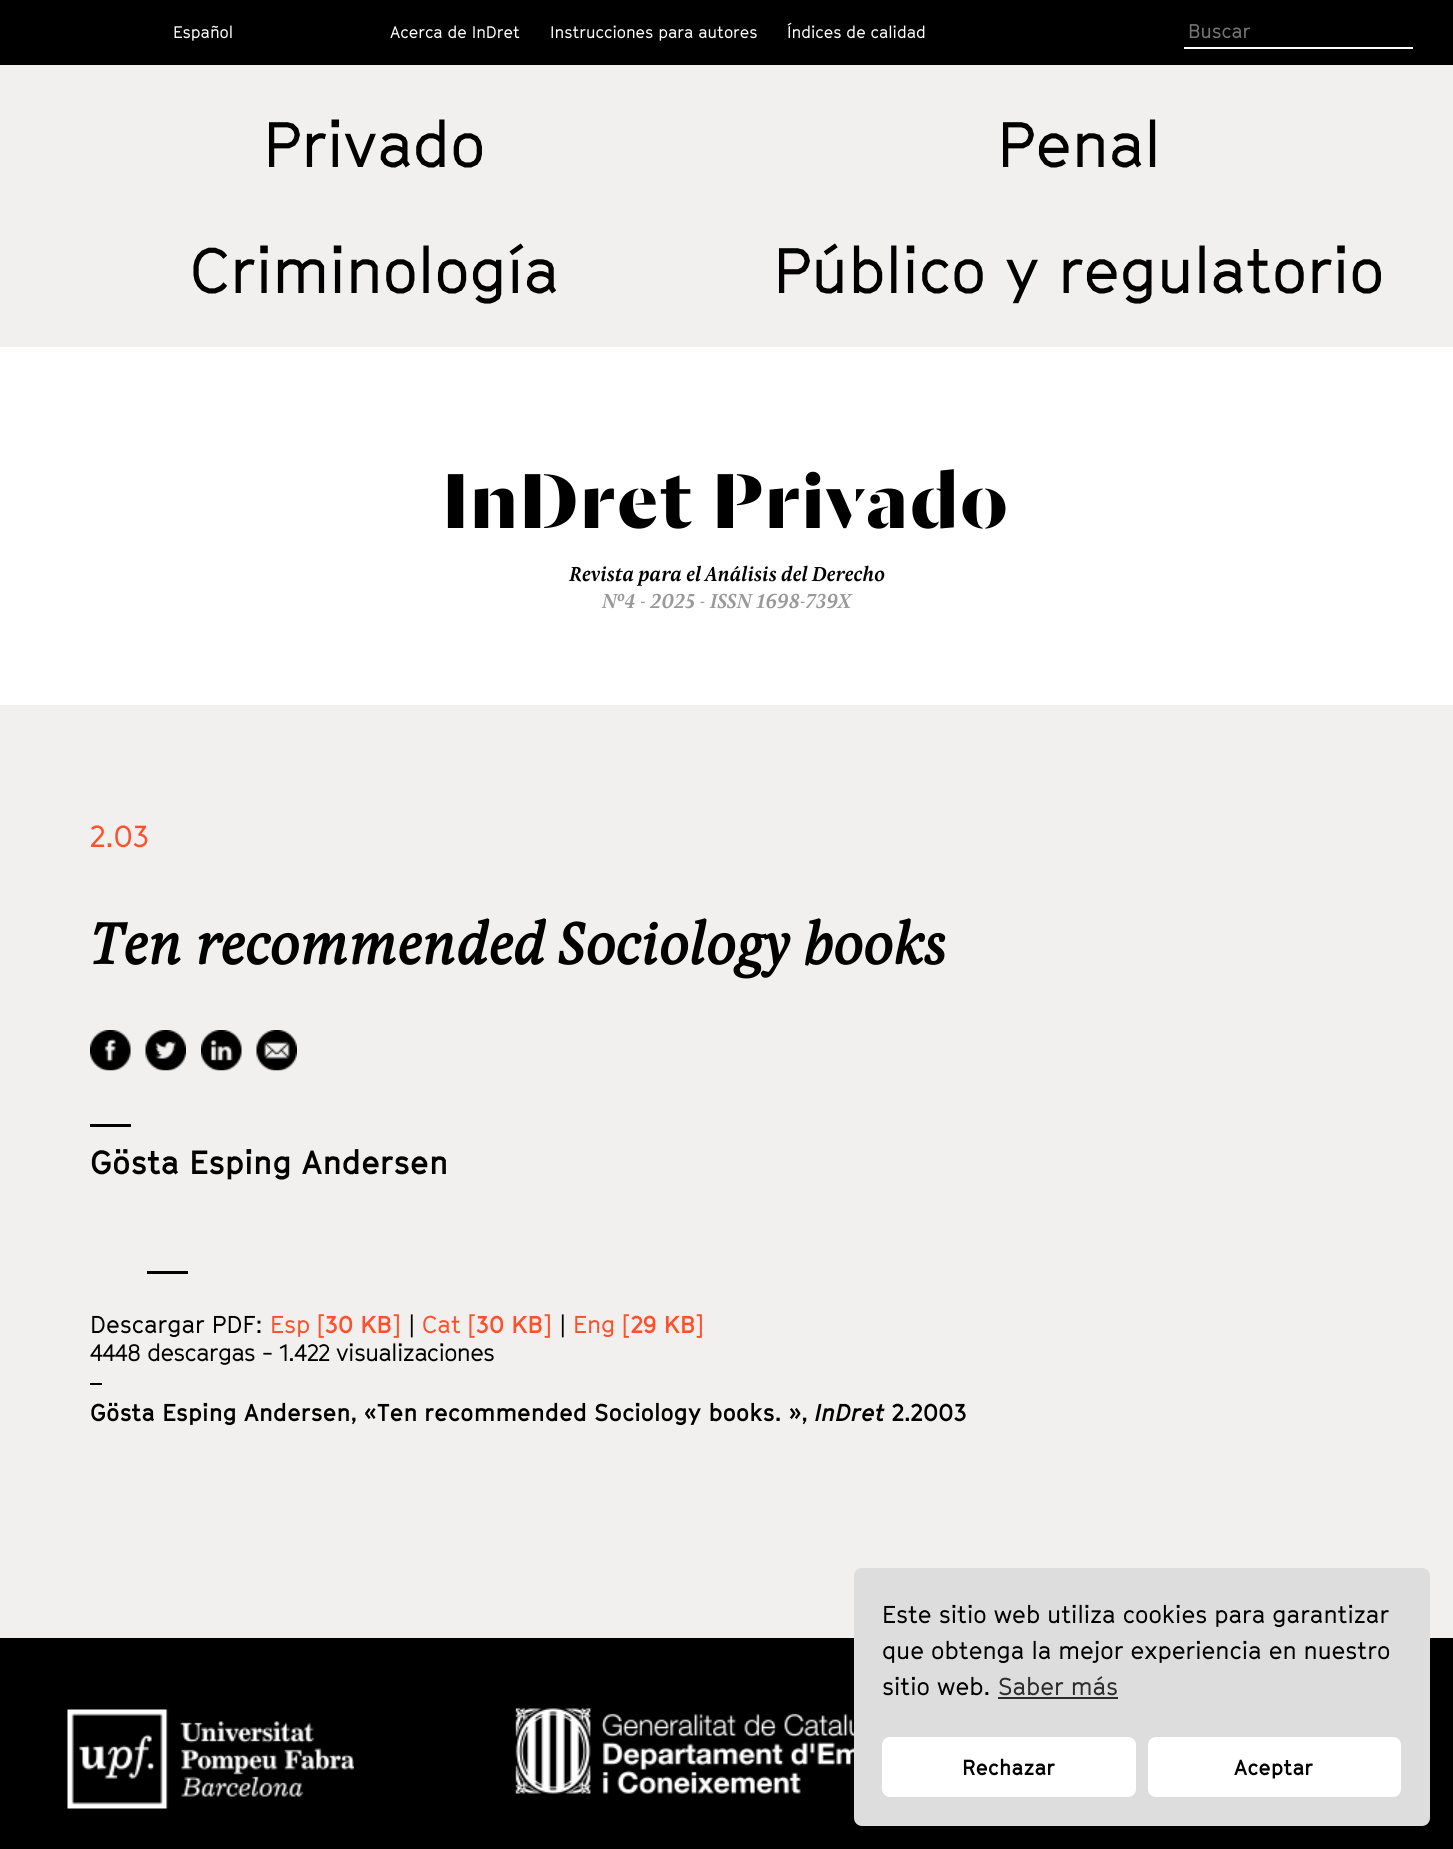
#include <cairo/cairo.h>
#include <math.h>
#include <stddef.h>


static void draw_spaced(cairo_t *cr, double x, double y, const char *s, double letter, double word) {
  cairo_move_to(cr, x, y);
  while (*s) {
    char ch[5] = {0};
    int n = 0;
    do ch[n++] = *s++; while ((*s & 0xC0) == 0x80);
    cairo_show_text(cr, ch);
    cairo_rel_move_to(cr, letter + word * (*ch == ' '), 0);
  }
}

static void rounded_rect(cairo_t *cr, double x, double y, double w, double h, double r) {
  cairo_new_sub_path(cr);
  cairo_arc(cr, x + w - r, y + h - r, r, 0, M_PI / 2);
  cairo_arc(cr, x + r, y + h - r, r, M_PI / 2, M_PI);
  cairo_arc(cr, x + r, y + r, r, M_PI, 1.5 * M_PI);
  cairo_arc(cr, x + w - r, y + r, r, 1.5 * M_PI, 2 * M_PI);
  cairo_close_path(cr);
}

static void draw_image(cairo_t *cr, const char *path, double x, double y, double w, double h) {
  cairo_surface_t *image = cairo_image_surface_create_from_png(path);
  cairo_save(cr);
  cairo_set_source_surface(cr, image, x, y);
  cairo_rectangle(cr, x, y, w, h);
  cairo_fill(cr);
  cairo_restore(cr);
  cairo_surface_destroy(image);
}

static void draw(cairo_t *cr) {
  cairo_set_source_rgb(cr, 1, 1, 1);
  cairo_paint(cr);
  cairo_set_source_rgb(cr, 0, 0, 0);
  cairo_rectangle(cr, 0, 0, 1453, 65);
  cairo_fill(cr);
  cairo_set_source_rgb(cr, 1, 1, 1);
  cairo_rectangle(cr, 1184, 47, 229, 2);
  cairo_fill(cr);
  cairo_set_source_rgb(cr, 241 / 255.0, 240 / 255.0, 238 / 255.0);
  cairo_rectangle(cr, 0, 65, 1453, 282);
  cairo_fill(cr);
  cairo_rectangle(cr, 0, 705, 1453, 933);
  cairo_fill(cr);
  draw_image(cr, "images/1.png", 90, 1030, 41, 41);
  draw_image(cr, "images/2.png", 145, 1030, 41, 41);
  draw_image(cr, "images/3.png", 201, 1030, 41, 41);
  draw_image(cr, "images/4.png", 256, 1030, 41, 41);
  cairo_set_source_rgb(cr, 0, 0, 0);
  cairo_rectangle(cr, 90, 1124, 41, 3);
  cairo_fill(cr);
  cairo_rectangle(cr, 147, 1271, 41, 3);
  cairo_fill(cr);
  cairo_rectangle(cr, 90, 1383, 12, 2);
  cairo_fill(cr);
  cairo_rectangle(cr, 0, 1638, 1453, 211);
  cairo_fill(cr);
  draw_image(cr, "images/5.png", 67, 1709, 287, 100);
  draw_image(cr, "images/6.png", 515, 1708, 339, 86);
  cairo_set_source_rgb(cr, 221 / 255.0, 221 / 255.0, 221 / 255.0);
  rounded_rect(cr, 854, 1568, 576, 258, 8);
  cairo_fill(cr);
  cairo_set_source_rgb(cr, 44 / 255.0, 44 / 255.0, 44 / 255.0);
  cairo_rectangle(cr, 998, 1697, 120, 2);
  cairo_fill(cr);
  cairo_set_source_rgb(cr, 1, 1, 1);
  rounded_rect(cr, 882, 1737, 254, 60, 8);
  cairo_fill(cr);
  rounded_rect(cr, 1148, 1737, 253, 60, 8);
  cairo_fill(cr);
  cairo_select_font_face(cr, "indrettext", CAIRO_FONT_SLANT_NORMAL, CAIRO_FONT_WEIGHT_NORMAL);
  cairo_set_font_size(cr, 16.5);
  cairo_move_to(cr, 173, 38);
  cairo_show_text(cr, "Español");
  cairo_move_to(cr, 390, 38);
  cairo_show_text(cr, "Acerca de InDret");
  cairo_move_to(cr, 550, 38);
  cairo_show_text(cr, "Instrucciones para autores");
  cairo_move_to(cr, 787, 38);
  cairo_show_text(cr, "Índices de calidad");
  cairo_set_font_size(cr, 19.5);
  cairo_set_source_rgb(cr, 117 / 255.0, 117 / 255.0, 117 / 255.0);
  cairo_move_to(cr, 1188, 38);
  cairo_show_text(cr, "Buscar");
  cairo_set_font_size(cr, 63);
  cairo_set_source_rgb(cr, 0, 0, 0);
  cairo_move_to(cr, 263, 167);
  cairo_show_text(cr, "Privado");
  cairo_move_to(cr, 997, 167);
  cairo_show_text(cr, "Penal");
  cairo_move_to(cr, 190, 293);
  cairo_show_text(cr, "Criminología");
  cairo_move_to(cr, 773, 293);
  cairo_show_text(cr, "Público y regulatorio");
  cairo_select_font_face(cr, "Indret", CAIRO_FONT_SLANT_NORMAL, CAIRO_FONT_WEIGHT_BOLD);
  cairo_set_font_size(cr, 85.5);
  draw_spaced(cr, 443, 528, "InDret Privado", 3, 0);
  cairo_select_font_face(cr, "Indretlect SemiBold", CAIRO_FONT_SLANT_ITALIC, CAIRO_FONT_WEIGHT_NORMAL);
  cairo_set_font_size(cr, 21);
  cairo_move_to(cr, 569, 581);
  cairo_show_text(cr, "Revista para el Análisis del Derecho");
  cairo_set_source_rgb(cr, 153 / 255.0, 153 / 255.0, 153 / 255.0);
  cairo_move_to(cr, 602, 608);
  cairo_show_text(cr, "Nº4 - 2025 - ISSN 1698-739X");
  cairo_select_font_face(cr, "indrettext", CAIRO_FONT_SLANT_NORMAL, CAIRO_FONT_WEIGHT_NORMAL);
  cairo_set_font_size(cr, 30);
  cairo_set_source_rgb(cr, 253 / 255.0, 80 / 255.0, 44 / 255.0);
  cairo_move_to(cr, 90, 847);
  cairo_show_text(cr, "2.03");
  cairo_select_font_face(cr, "Indretlect", CAIRO_FONT_SLANT_ITALIC, CAIRO_FONT_WEIGHT_BOLD);
  cairo_set_font_size(cr, 60);
  cairo_set_source_rgb(cr, 0, 0, 0);
  cairo_move_to(cr, 90, 964);
  cairo_show_text(cr, "Ten recommended Sociology books");
  cairo_select_font_face(cr, "indrettext", CAIRO_FONT_SLANT_NORMAL, CAIRO_FONT_WEIGHT_BOLD);
  cairo_set_font_size(cr, 33);
  cairo_move_to(cr, 90, 1174);
  cairo_show_text(cr, "Gösta Esping Andersen");
  cairo_select_font_face(cr, "indrettext", CAIRO_FONT_SLANT_NORMAL, CAIRO_FONT_WEIGHT_NORMAL);
  cairo_set_font_size(cr, 24);
  cairo_move_to(cr, 90, 1333);
  cairo_show_text(cr, "Descargar PDF:");
  cairo_set_source_rgb(cr, 253 / 255.0, 80 / 255.0, 44 / 255.0);
  cairo_move_to(cr, 270, 1333);
  cairo_show_text(cr, "Esp [");
  cairo_select_font_face(cr, "indrettext", CAIRO_FONT_SLANT_NORMAL, CAIRO_FONT_WEIGHT_BOLD);
  cairo_move_to(cr, 325, 1333);
  cairo_show_text(cr, "30 KB");
  cairo_select_font_face(cr, "indrettext", CAIRO_FONT_SLANT_NORMAL, CAIRO_FONT_WEIGHT_NORMAL);
  cairo_move_to(cr, 392, 1333);
  cairo_show_text(cr, "]");
  cairo_set_source_rgb(cr, 0, 0, 0);
  cairo_move_to(cr, 408, 1333);
  cairo_show_text(cr, "|");
  cairo_set_source_rgb(cr, 253 / 255.0, 80 / 255.0, 44 / 255.0);
  cairo_move_to(cr, 422, 1333);
  cairo_show_text(cr, "Cat [");
  cairo_select_font_face(cr, "indrettext", CAIRO_FONT_SLANT_NORMAL, CAIRO_FONT_WEIGHT_BOLD);
  cairo_move_to(cr, 476, 1333);
  cairo_show_text(cr, "30 KB");
  cairo_select_font_face(cr, "indrettext", CAIRO_FONT_SLANT_NORMAL, CAIRO_FONT_WEIGHT_NORMAL);
  cairo_move_to(cr, 543, 1333);
  cairo_show_text(cr, "]");
  cairo_set_source_rgb(cr, 0, 0, 0);
  cairo_move_to(cr, 559, 1333);
  cairo_show_text(cr, "|");
  cairo_set_source_rgb(cr, 253 / 255.0, 80 / 255.0, 44 / 255.0);
  cairo_move_to(cr, 573, 1333);
  cairo_show_text(cr, "Eng [");
  cairo_select_font_face(cr, "indrettext", CAIRO_FONT_SLANT_NORMAL, CAIRO_FONT_WEIGHT_BOLD);
  cairo_move_to(cr, 631, 1333);
  cairo_show_text(cr, "29 KB");
  cairo_select_font_face(cr, "indrettext", CAIRO_FONT_SLANT_NORMAL, CAIRO_FONT_WEIGHT_NORMAL);
  cairo_move_to(cr, 695, 1333);
  cairo_show_text(cr, "]");
  cairo_select_font_face(cr, "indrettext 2", CAIRO_FONT_SLANT_NORMAL, CAIRO_FONT_WEIGHT_BOLD);
  cairo_set_font_size(cr, 22.5);
  cairo_set_source_rgb(cr, 0, 0, 0);
  cairo_move_to(cr, 90, 1361);
  cairo_show_text(cr, "4448 descargas - 1.422 visualizaciones");
  cairo_select_font_face(cr, "indrettext", CAIRO_FONT_SLANT_NORMAL, CAIRO_FONT_WEIGHT_BOLD);
  cairo_set_font_size(cr, 24);
  cairo_move_to(cr, 90, 1421);
  cairo_show_text(cr, "Gösta Esping Andersen, «Ten recommended Sociology books. »,");
  cairo_select_font_face(cr, "indrettext", CAIRO_FONT_SLANT_ITALIC, CAIRO_FONT_WEIGHT_BOLD);
  cairo_move_to(cr, 815, 1421);
  cairo_show_text(cr, "InDret");
  cairo_select_font_face(cr, "indrettext", CAIRO_FONT_SLANT_NORMAL, CAIRO_FONT_WEIGHT_BOLD);
  cairo_move_to(cr, 892, 1421);
  cairo_show_text(cr, "2.2003");
  cairo_select_font_face(cr, "indrettext", CAIRO_FONT_SLANT_NORMAL, CAIRO_FONT_WEIGHT_NORMAL);
  cairo_move_to(cr, 882, 1623);
  cairo_show_text(cr, "Este sitio web utiliza cookies para garantizar");
  cairo_move_to(cr, 882, 1659);
  cairo_show_text(cr, "que obtenga la mejor experiencia en nuestro");
  cairo_move_to(cr, 882, 1695);
  cairo_show_text(cr, "sitio web.");
  cairo_set_source_rgb(cr, 44 / 255.0, 44 / 255.0, 44 / 255.0);
  cairo_move_to(cr, 998, 1695);
  cairo_show_text(cr, "Saber más");
  cairo_select_font_face(cr, "indrettext", CAIRO_FONT_SLANT_NORMAL, CAIRO_FONT_WEIGHT_BOLD);
  cairo_set_font_size(cr, 21.5);
  cairo_set_source_rgb(cr, 0, 0, 0);
  cairo_move_to(cr, 962, 1775);
  cairo_show_text(cr, "Rechazar");
  cairo_move_to(cr, 1234, 1775);
  cairo_show_text(cr, "Aceptar");
}

int main(void) {
  cairo_surface_t *surface = cairo_image_surface_create(CAIRO_FORMAT_RGB24, 1453, 1849);
  cairo_t *cr = cairo_create(surface);
  cairo_font_options_t *options = cairo_font_options_create();
  cairo_font_options_set_hint_metrics(options, CAIRO_HINT_METRICS_OFF);
  cairo_font_options_set_hint_style(options, CAIRO_HINT_STYLE_NONE);
  cairo_set_font_options(cr, options);
  cairo_set_miter_limit(cr, 4);
  draw(cr);
  cairo_surface_write_to_png(surface, "out.png");
  cairo_font_options_destroy(options);
  cairo_destroy(cr);
  cairo_surface_destroy(surface);
  return 0;
}
